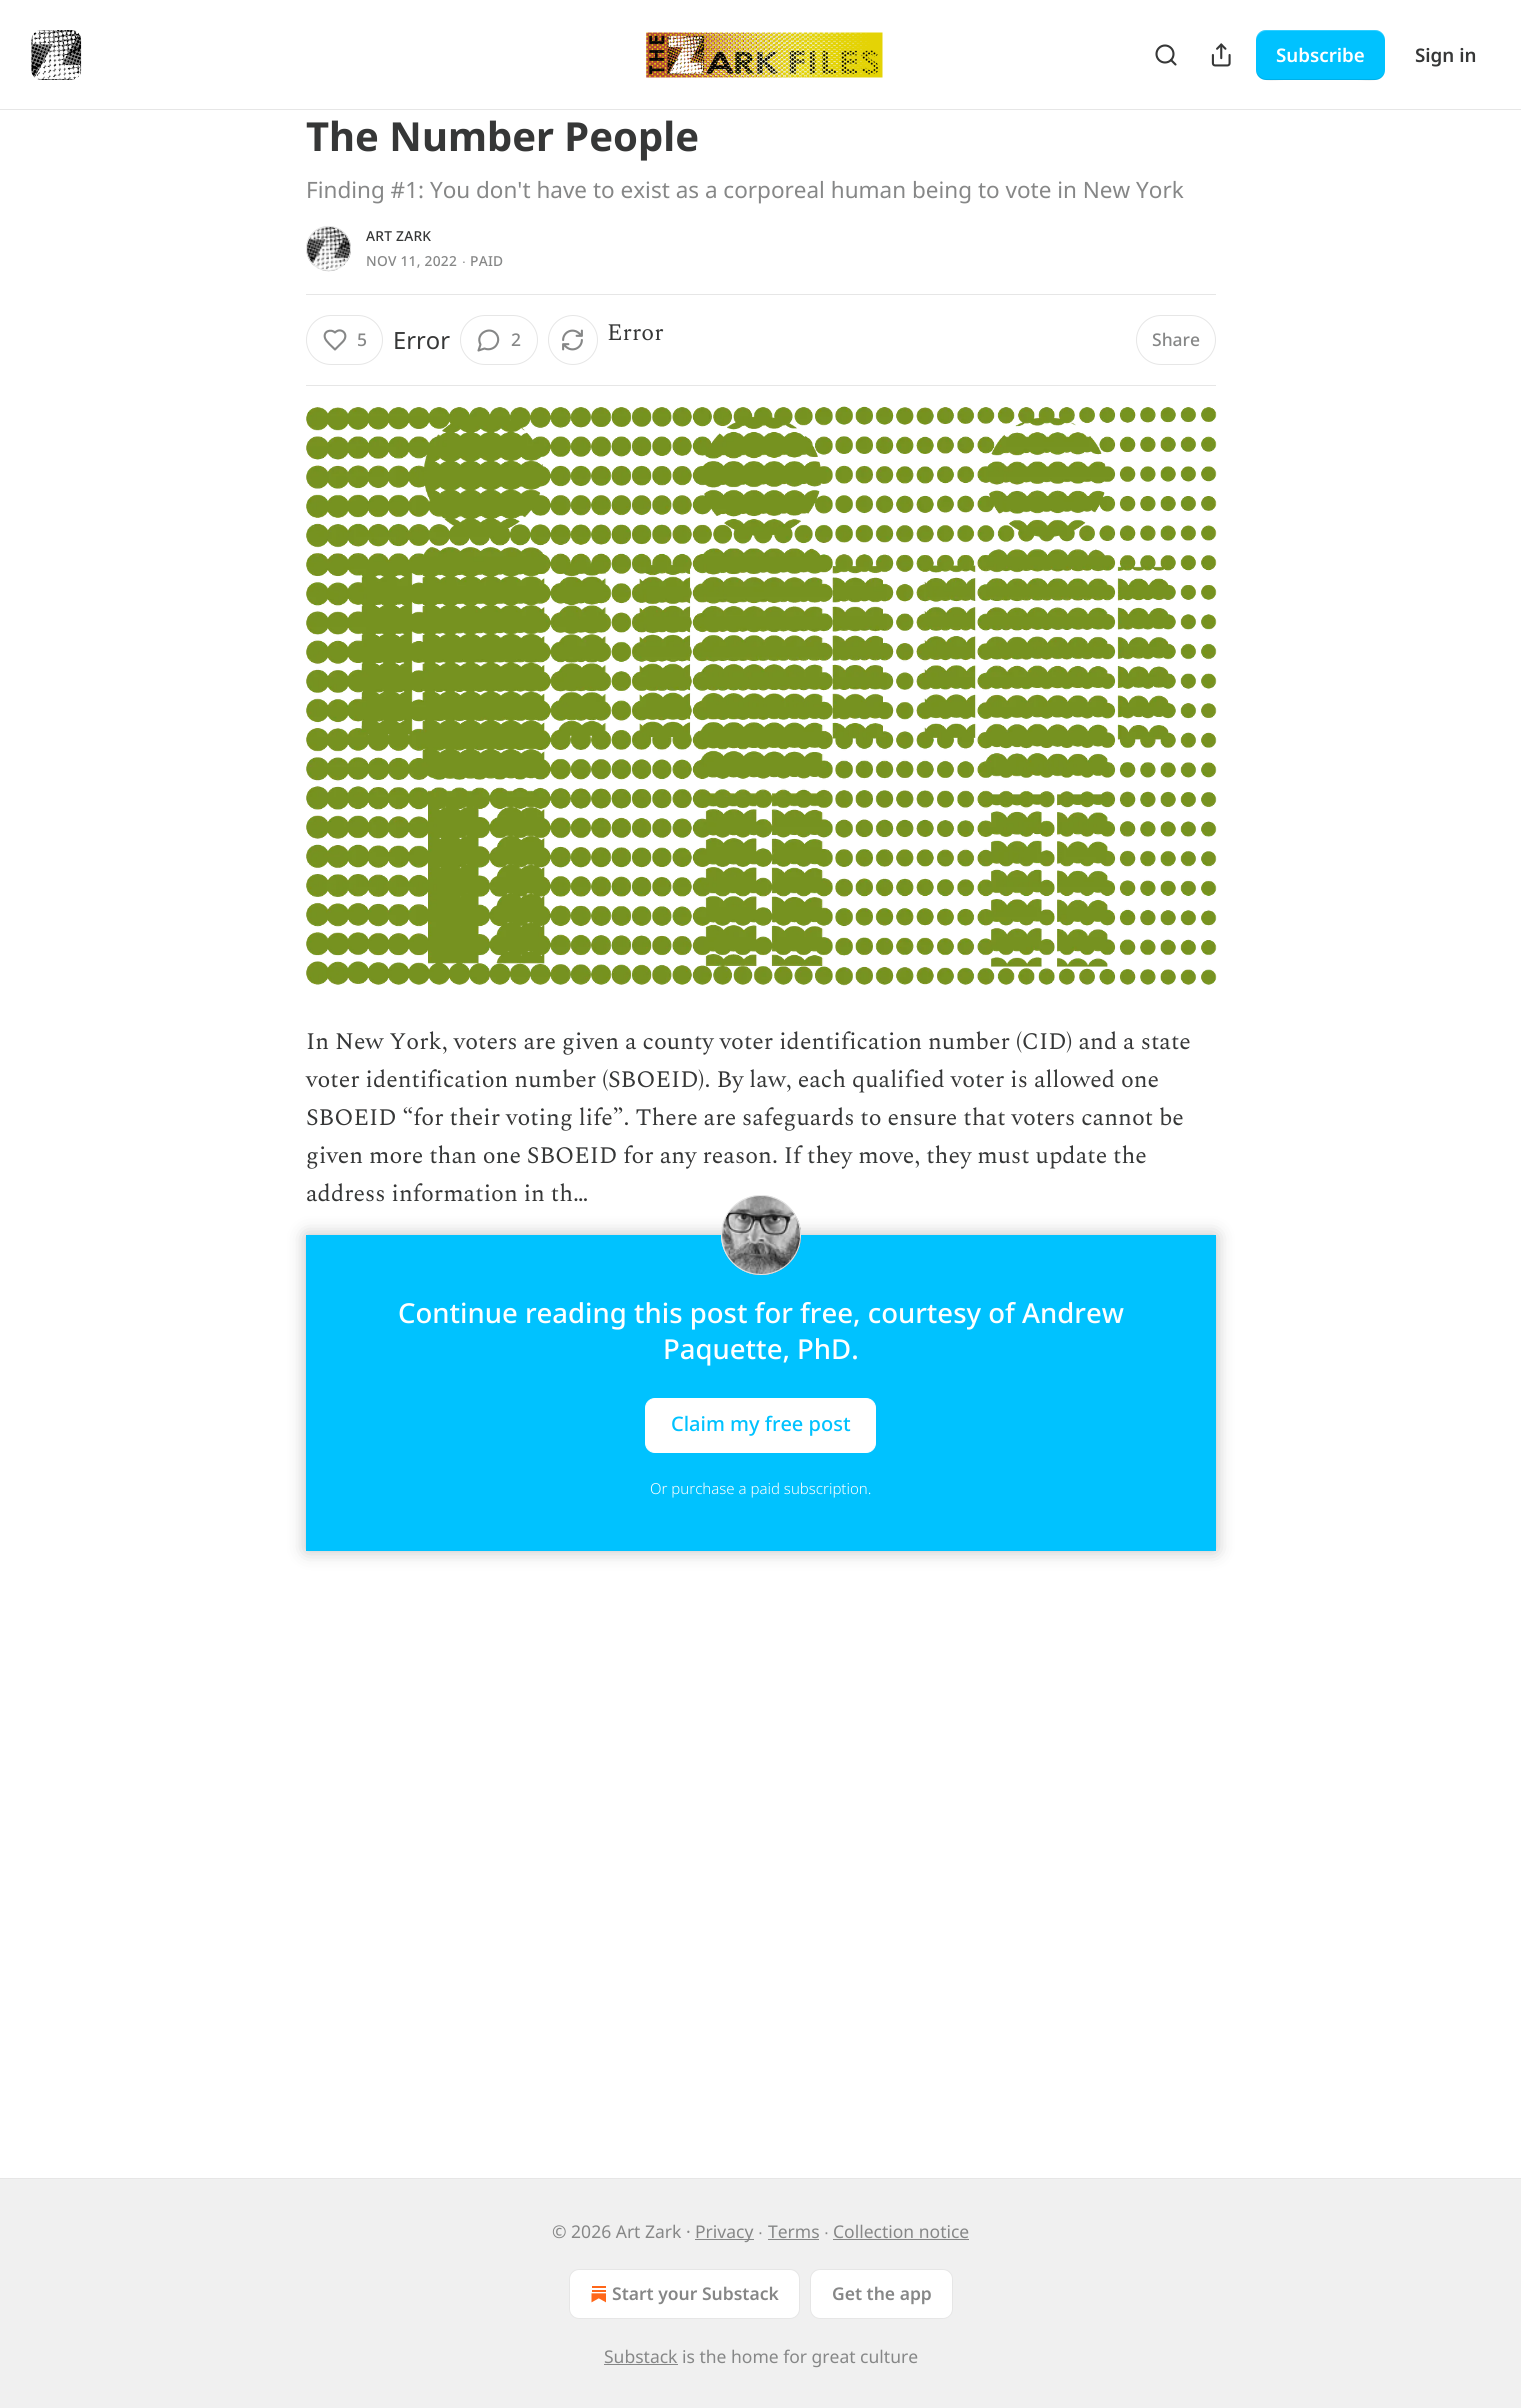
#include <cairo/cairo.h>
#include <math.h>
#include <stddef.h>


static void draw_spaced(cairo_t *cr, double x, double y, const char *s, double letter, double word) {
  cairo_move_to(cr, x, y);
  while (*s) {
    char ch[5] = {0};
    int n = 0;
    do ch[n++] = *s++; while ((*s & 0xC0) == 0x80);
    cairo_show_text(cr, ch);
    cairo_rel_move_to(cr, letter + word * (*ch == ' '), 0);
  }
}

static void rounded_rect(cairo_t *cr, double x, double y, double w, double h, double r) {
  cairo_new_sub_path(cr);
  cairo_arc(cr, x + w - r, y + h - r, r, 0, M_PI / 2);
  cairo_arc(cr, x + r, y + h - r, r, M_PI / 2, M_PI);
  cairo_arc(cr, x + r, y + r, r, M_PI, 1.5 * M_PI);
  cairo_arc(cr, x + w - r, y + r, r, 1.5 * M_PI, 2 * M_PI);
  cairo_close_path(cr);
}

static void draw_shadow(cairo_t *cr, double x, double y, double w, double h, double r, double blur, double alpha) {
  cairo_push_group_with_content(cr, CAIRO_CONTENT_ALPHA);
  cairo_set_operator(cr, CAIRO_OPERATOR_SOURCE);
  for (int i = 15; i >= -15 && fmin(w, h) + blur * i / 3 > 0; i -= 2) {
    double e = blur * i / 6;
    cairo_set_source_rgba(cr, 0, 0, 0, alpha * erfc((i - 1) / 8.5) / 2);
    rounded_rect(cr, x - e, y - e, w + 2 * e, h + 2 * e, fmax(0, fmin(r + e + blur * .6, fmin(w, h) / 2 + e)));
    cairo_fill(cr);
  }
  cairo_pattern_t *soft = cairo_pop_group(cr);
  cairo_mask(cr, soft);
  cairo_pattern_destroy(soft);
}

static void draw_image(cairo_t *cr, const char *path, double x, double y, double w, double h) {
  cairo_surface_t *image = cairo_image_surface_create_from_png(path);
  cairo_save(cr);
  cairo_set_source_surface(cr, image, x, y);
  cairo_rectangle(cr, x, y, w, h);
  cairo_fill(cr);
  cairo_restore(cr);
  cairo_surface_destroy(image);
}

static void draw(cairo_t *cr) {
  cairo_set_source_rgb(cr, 1, 1, 1);
  cairo_paint(cr);
  cairo_set_source_rgb(cr, 230 / 255.0, 230 / 255.0, 230 / 255.0);
  cairo_rectangle(cr, 0, 109, 1521, 1);
  cairo_fill(cr);
  draw_image(cr, "images/1.png", 31, 30, 51, 50);
  draw_image(cr, "images/2.png", 646, 32, 237, 46);
  cairo_arc(cr, 1165, 54, 8.5, 0, 2 * M_PI);
  cairo_set_source_rgb(cr, 54 / 255.0, 55 / 255.0, 55 / 255.0);
  cairo_set_line_width(cr, 2.1);
  cairo_stroke(cr);
  cairo_new_path(cr);
  cairo_move_to(cr, 1175.5, 64.5);
  cairo_line_to(cr, 1171, 60);
  cairo_set_line_cap(cr, CAIRO_LINE_CAP_ROUND);
  cairo_set_line_join(cr, CAIRO_LINE_JOIN_ROUND);
  cairo_stroke(cr);
  draw_image(cr, "images/3.png", 1211, 43, 20, 24);
  cairo_set_source_rgb(cr, 0, 194 / 255.0, 1);
  rounded_rect(cr, 1256, 30, 129, 50, 10);
  cairo_fill(cr);
  cairo_set_source_rgba(cr, 0, 0, 0, 0.1);
  cairo_new_path(cr);
  cairo_move_to(cr, 1256, 69);
  cairo_curve_to(cr, 1256, 84, 1274, 80, 1284, 80);
  cairo_line_to(cr, 1357, 80);
  cairo_curve_to(cr, 1367, 80, 1385, 84, 1385, 69);
  cairo_curve_to(cr, 1385, 74, 1381, 79, 1375, 79);
  cairo_line_to(cr, 1266, 79);
  cairo_curve_to(cr, 1261, 79, 1256, 74, 1256, 69);
  cairo_close_path(cr);
  cairo_fill(cr);
  cairo_set_source_rgba(cr, 1, 1, 1, 0.2);
  cairo_new_path(cr);
  cairo_move_to(cr, 1266, 31);
  cairo_line_to(cr, 1375, 31);
  cairo_curve_to(cr, 1381, 31, 1385, 36, 1385, 41);
  cairo_curve_to(cr, 1385, 26, 1367, 30, 1357, 30);
  cairo_line_to(cr, 1284, 30);
  cairo_curve_to(cr, 1274, 30, 1256, 26, 1256, 41);
  cairo_curve_to(cr, 1256, 36, 1261, 31, 1266, 31);
  cairo_close_path(cr);
  cairo_fill(cr);
  cairo_arc(cr, 328.5, 248.5, 22, 0, 2 * M_PI);
  cairo_set_source_rgb(cr, 230 / 255.0, 230 / 255.0, 230 / 255.0);
  cairo_set_line_width(cr, 1);
  cairo_set_line_cap(cr, CAIRO_LINE_CAP_BUTT);
  cairo_set_line_join(cr, CAIRO_LINE_JOIN_MITER);
  cairo_stroke(cr);
  draw_image(cr, "images/4.png", 306, 226, 45, 46);
  cairo_arc(cr, 328.5, 248.5, 22, 0, 2 * M_PI);
  cairo_stroke(cr);
  cairo_rectangle(cr, 306, 294, 910, 1);
  cairo_fill(cr);
  cairo_rectangle(cr, 306, 385, 910, 1);
  cairo_fill(cr);
  rounded_rect(cr, 306.5, 315.5, 76, 49, 24.5);
  cairo_stroke(cr);
  cairo_new_path(cr);
  cairo_move_to(cr, 342.5, 342);
  cairo_curve_to(cr, 350, 334.5, 341, 326.5, 335, 332.5);
  cairo_curve_to(cr, 330.5, 328.5, 323, 331.5, 325, 338);
  cairo_curve_to(cr, 326, 341.5, 332.5, 347, 335, 349.5);
  cairo_close_path(cr);
  cairo_set_source_rgb(cr, 134 / 255.0, 135 / 255.0, 135 / 255.0);
  cairo_set_line_width(cr, 2.1);
  cairo_set_line_cap(cr, CAIRO_LINE_CAP_ROUND);
  cairo_set_line_join(cr, CAIRO_LINE_JOIN_ROUND);
  cairo_stroke(cr);
  rounded_rect(cr, 460.5, 315.5, 77, 49, 24.5);
  cairo_set_source_rgb(cr, 230 / 255.0, 230 / 255.0, 230 / 255.0);
  cairo_set_line_width(cr, 1);
  cairo_set_line_cap(cr, CAIRO_LINE_CAP_BUTT);
  cairo_set_line_join(cr, CAIRO_LINE_JOIN_MITER);
  cairo_stroke(cr);
  cairo_new_path(cr);
  cairo_move_to(cr, 484.5, 348.5);
  cairo_curve_to(cr, 489, 350.5, 495, 348.5, 497, 344);
  cairo_curve_to(cr, 498.5, 341.5, 498.5, 338.5, 497.5, 336);
  cairo_curve_to(cr, 492, 324.5, 474.5, 333, 480.5, 344.5);
  cairo_line_to(cr, 478.5, 350.5);
  cairo_close_path(cr);
  cairo_set_source_rgb(cr, 134 / 255.0, 135 / 255.0, 135 / 255.0);
  cairo_set_line_width(cr, 2.1);
  cairo_set_line_cap(cr, CAIRO_LINE_CAP_ROUND);
  cairo_set_line_join(cr, CAIRO_LINE_JOIN_ROUND);
  cairo_stroke(cr);
  cairo_arc(cr, 573, 340, 24.5, 0, 2 * M_PI);
  cairo_set_source_rgb(cr, 230 / 255.0, 230 / 255.0, 230 / 255.0);
  cairo_set_line_width(cr, 1);
  cairo_set_line_cap(cr, CAIRO_LINE_CAP_BUTT);
  cairo_set_line_join(cr, CAIRO_LINE_JOIN_MITER);
  cairo_stroke(cr);
  draw_image(cr, "images/5.png", 562, 329, 21, 22);
  rounded_rect(cr, 1136.5, 315.5, 79, 49, 24.5);
  cairo_stroke(cr);
  draw_image(cr, "images/6.png", 306, 406, 911, 580);
  cairo_set_source_rgb(cr, 0, 194 / 255.0, 1);
  cairo_rectangle(cr, 306, 1235, 910, 316);
  cairo_fill(cr);
  cairo_set_source_rgb(cr, 1, 1, 1);
  rounded_rect(cr, 645.5, 1398.5, 230, 54, 9.5);
  cairo_fill_preserve(cr);
  cairo_stroke(cr);
  cairo_save(cr);
  cairo_set_fill_rule(cr, CAIRO_FILL_RULE_EVEN_ODD);
  cairo_new_path(cr);
  cairo_move_to(cr, 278, 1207);
  cairo_line_to(cr, 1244, 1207);
  cairo_line_to(cr, 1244, 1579);
  cairo_line_to(cr, 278, 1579);
  cairo_close_path(cr);
  cairo_move_to(cr, 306, 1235);
  cairo_line_to(cr, 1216, 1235);
  cairo_line_to(cr, 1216, 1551);
  cairo_line_to(cr, 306, 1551);
  cairo_close_path(cr);
  cairo_clip(cr);
  cairo_set_source_rgb(cr, 0, 0, 0);
  draw_shadow(cr, 306, 1235, 910, 316, 0, 9, 0.25);
  cairo_restore(cr);
  cairo_arc(cr, 761, 1235, 39.5, 0, 2 * M_PI);
  cairo_set_source_rgb(cr, 230 / 255.0, 230 / 255.0, 230 / 255.0);
  cairo_stroke(cr);
  draw_image(cr, "images/7.png", 721, 1195, 80, 80);
  cairo_arc(cr, 761, 1235, 39.5, 0, 2 * M_PI);
  cairo_stroke(cr);
  cairo_set_source_rgb(cr, 240 / 255.0, 240 / 255.0, 240 / 255.0);
  cairo_rectangle(cr, 0, 2179, 1521, 229);
  cairo_fill(cr);
  cairo_set_source_rgb(cr, 230 / 255.0, 230 / 255.0, 230 / 255.0);
  cairo_rectangle(cr, 0, 2178, 1521, 1);
  cairo_fill(cr);
  cairo_set_source_rgb(cr, 134 / 255.0, 135 / 255.0, 135 / 255.0);
  cairo_rectangle(cr, 695, 2239, 59, 1);
  cairo_fill(cr);
  cairo_rectangle(cr, 768, 2239, 51, 1);
  cairo_fill(cr);
  cairo_rectangle(cr, 833, 2239, 136, 1);
  cairo_fill(cr);
  cairo_set_source_rgb(cr, 1, 1, 1);
  rounded_rect(cr, 569.5, 2269.5, 230, 49, 9.5);
  cairo_fill_preserve(cr);
  cairo_set_source_rgb(cr, 230 / 255.0, 230 / 255.0, 230 / 255.0);
  cairo_stroke(cr);
  draw_image(cr, "images/8.png", 591, 2286, 15, 17);
  cairo_set_source_rgb(cr, 1, 1, 1);
  rounded_rect(cr, 810.5, 2269.5, 142, 49, 9.5);
  cairo_fill_preserve(cr);
  cairo_set_source_rgb(cr, 230 / 255.0, 230 / 255.0, 230 / 255.0);
  cairo_stroke(cr);
  cairo_set_source_rgb(cr, 134 / 255.0, 135 / 255.0, 135 / 255.0);
  cairo_rectangle(cr, 604, 2364, 74, 1);
  cairo_fill(cr);
  cairo_select_font_face(cr, "Noto Sans SemiBold", CAIRO_FONT_SLANT_NORMAL, CAIRO_FONT_WEIGHT_NORMAL);
  cairo_set_font_size(cr, 18.75);
  cairo_set_source_rgb(cr, 1, 1, 1);
  cairo_move_to(cr, 1276, 62);
  cairo_show_text(cr, "Subscribe");
  cairo_set_source_rgb(cr, 54 / 255.0, 55 / 255.0, 55 / 255.0);
  cairo_move_to(cr, 1415, 62);
  cairo_show_text(cr, "Sign in");
  cairo_select_font_face(cr, "Noto Sans", CAIRO_FONT_SLANT_NORMAL, CAIRO_FONT_WEIGHT_BOLD);
  cairo_set_font_size(cr, 40);
  cairo_move_to(cr, 306, 151);
  cairo_show_text(cr, "The Number People");
  cairo_select_font_face(cr, "Noto Sans", CAIRO_FONT_SLANT_NORMAL, CAIRO_FONT_WEIGHT_NORMAL);
  cairo_set_font_size(cr, 22.5);
  cairo_set_source_rgb(cr, 134 / 255.0, 135 / 255.0, 135 / 255.0);
  cairo_move_to(cr, 306, 198);
  cairo_show_text(cr, "Finding #1: You don't have to exist as a corporeal human being to vote in New York");
  cairo_select_font_face(cr, "Noto Sans Medium", CAIRO_FONT_SLANT_NORMAL, CAIRO_FONT_WEIGHT_NORMAL);
  cairo_set_font_size(cr, 13.75);
  cairo_set_source_rgb(cr, 54 / 255.0, 55 / 255.0, 55 / 255.0);
  draw_spaced(cr, 366, 241, "ART ZARK", 0.25, 0);
  cairo_set_source_rgb(cr, 134 / 255.0, 135 / 255.0, 135 / 255.0);
  draw_spaced(cr, 366, 266, "NOV 11, 2022", 0.25, 0);
  cairo_select_font_face(cr, "Liberation Sans", CAIRO_FONT_SLANT_NORMAL, CAIRO_FONT_WEIGHT_NORMAL);
  draw_spaced(cr, 462, 266, "∙", 0.25, 0);
  cairo_select_font_face(cr, "Noto Sans Medium", CAIRO_FONT_SLANT_NORMAL, CAIRO_FONT_WEIGHT_NORMAL);
  draw_spaced(cr, 470, 266, "PAID", 0.25, 0);
  cairo_set_font_size(cr, 17.5);
  cairo_move_to(cr, 357, 346);
  cairo_show_text(cr, "5");
  cairo_select_font_face(cr, "Noto Sans", CAIRO_FONT_SLANT_NORMAL, CAIRO_FONT_WEIGHT_NORMAL);
  cairo_set_font_size(cr, 23.75);
  cairo_set_source_rgb(cr, 54 / 255.0, 55 / 255.0, 55 / 255.0);
  cairo_move_to(cr, 393, 349);
  cairo_show_text(cr, "Error");
  cairo_select_font_face(cr, "Noto Sans Medium", CAIRO_FONT_SLANT_NORMAL, CAIRO_FONT_WEIGHT_NORMAL);
  cairo_set_font_size(cr, 17.5);
  cairo_set_source_rgb(cr, 134 / 255.0, 135 / 255.0, 135 / 255.0);
  cairo_move_to(cr, 511, 346);
  cairo_show_text(cr, "2");
  cairo_select_font_face(cr, "Spectral", CAIRO_FONT_SLANT_NORMAL, CAIRO_FONT_WEIGHT_NORMAL);
  cairo_set_font_size(cr, 23.75);
  cairo_set_source_rgb(cr, 54 / 255.0, 55 / 255.0, 55 / 255.0);
  cairo_move_to(cr, 607, 340);
  cairo_show_text(cr, "Error");
  cairo_select_font_face(cr, "Noto Sans Medium", CAIRO_FONT_SLANT_NORMAL, CAIRO_FONT_WEIGHT_NORMAL);
  cairo_set_font_size(cr, 17.5);
  cairo_set_source_rgb(cr, 134 / 255.0, 135 / 255.0, 135 / 255.0);
  cairo_move_to(cr, 1152, 346);
  cairo_show_text(cr, "Share");
  cairo_select_font_face(cr, "Spectral", CAIRO_FONT_SLANT_NORMAL, CAIRO_FONT_WEIGHT_NORMAL);
  cairo_set_font_size(cr, 23.75);
  cairo_set_source_rgb(cr, 54 / 255.0, 55 / 255.0, 55 / 255.0);
  cairo_move_to(cr, 306, 1049);
  cairo_show_text(cr, "In New York, voters are given a county voter identification number (CID) and a state");
  cairo_move_to(cr, 306, 1087);
  cairo_show_text(cr, "voter identification number (SBOEID). By law, each qualified voter is allowed one");
  cairo_move_to(cr, 306, 1125);
  cairo_show_text(cr, "SBOEID “for their voting life”. There are safeguards to ensure that voters cannot be");
  cairo_move_to(cr, 306, 1163);
  cairo_show_text(cr, "given more than one SBOEID for any reason. If they move, they must update the");
  cairo_move_to(cr, 306, 1201);
  cairo_show_text(cr, "address information in th…");
  cairo_select_font_face(cr, "Noto Sans Medium", CAIRO_FONT_SLANT_NORMAL, CAIRO_FONT_WEIGHT_NORMAL);
  cairo_set_font_size(cr, 27.5);
  cairo_set_source_rgb(cr, 1, 1, 1);
  cairo_move_to(cr, 398, 1323);
  cairo_show_text(cr, "Continue reading this post for free, courtesy of Andrew");
  cairo_move_to(cr, 663, 1359);
  cairo_show_text(cr, "Paquette, PhD.");
  cairo_set_font_size(cr, 20);
  cairo_set_source_rgb(cr, 0, 194 / 255.0, 1);
  cairo_move_to(cr, 671, 1431);
  cairo_show_text(cr, "Claim my free post");
  cairo_select_font_face(cr, "Noto Sans Light", CAIRO_FONT_SLANT_NORMAL, CAIRO_FONT_WEIGHT_NORMAL);
  cairo_set_font_size(cr, 15);
  cairo_set_source_rgb(cr, 1, 1, 1);
  cairo_move_to(cr, 650, 1494);
  cairo_show_text(cr, "Or purchase a paid subscription.");
  cairo_select_font_face(cr, "Noto Sans", CAIRO_FONT_SLANT_NORMAL, CAIRO_FONT_WEIGHT_NORMAL);
  cairo_set_font_size(cr, 17.5);
  cairo_set_source_rgb(cr, 134 / 255.0, 135 / 255.0, 135 / 255.0);
  cairo_move_to(cr, 552, 2238);
  cairo_show_text(cr, "© 2026 Art Zark ·");
  cairo_move_to(cr, 695, 2238);
  cairo_show_text(cr, "Privacy");
  cairo_select_font_face(cr, "Liberation Sans", CAIRO_FONT_SLANT_NORMAL, CAIRO_FONT_WEIGHT_NORMAL);
  cairo_move_to(cr, 758, 2238);
  cairo_show_text(cr, "∙");
  cairo_select_font_face(cr, "Noto Sans", CAIRO_FONT_SLANT_NORMAL, CAIRO_FONT_WEIGHT_NORMAL);
  cairo_move_to(cr, 768, 2238);
  cairo_show_text(cr, "Terms");
  cairo_select_font_face(cr, "Liberation Sans", CAIRO_FONT_SLANT_NORMAL, CAIRO_FONT_WEIGHT_NORMAL);
  cairo_move_to(cr, 824, 2238);
  cairo_show_text(cr, "∙");
  cairo_select_font_face(cr, "Noto Sans", CAIRO_FONT_SLANT_NORMAL, CAIRO_FONT_WEIGHT_NORMAL);
  cairo_move_to(cr, 833, 2238);
  cairo_show_text(cr, "Collection notice");
  cairo_select_font_face(cr, "Noto Sans SemiBold", CAIRO_FONT_SLANT_NORMAL, CAIRO_FONT_WEIGHT_NORMAL);
  cairo_move_to(cr, 612, 2300);
  cairo_show_text(cr, "Start your Substack");
  cairo_move_to(cr, 832, 2300);
  cairo_show_text(cr, "Get the app");
  cairo_select_font_face(cr, "Noto Sans", CAIRO_FONT_SLANT_NORMAL, CAIRO_FONT_WEIGHT_NORMAL);
  cairo_move_to(cr, 604, 2363);
  cairo_show_text(cr, "Substack is the home for great culture");
}

int main(void) {
  cairo_surface_t *surface = cairo_image_surface_create(CAIRO_FORMAT_RGB24, 1521, 2408);
  cairo_t *cr = cairo_create(surface);
  cairo_font_options_t *options = cairo_font_options_create();
  cairo_font_options_set_hint_metrics(options, CAIRO_HINT_METRICS_OFF);
  cairo_font_options_set_hint_style(options, CAIRO_HINT_STYLE_NONE);
  cairo_set_font_options(cr, options);
  cairo_set_miter_limit(cr, 4);
  draw(cr);
  cairo_surface_write_to_png(surface, "out.png");
  cairo_font_options_destroy(options);
  cairo_destroy(cr);
  cairo_surface_destroy(surface);
  return 0;
}
